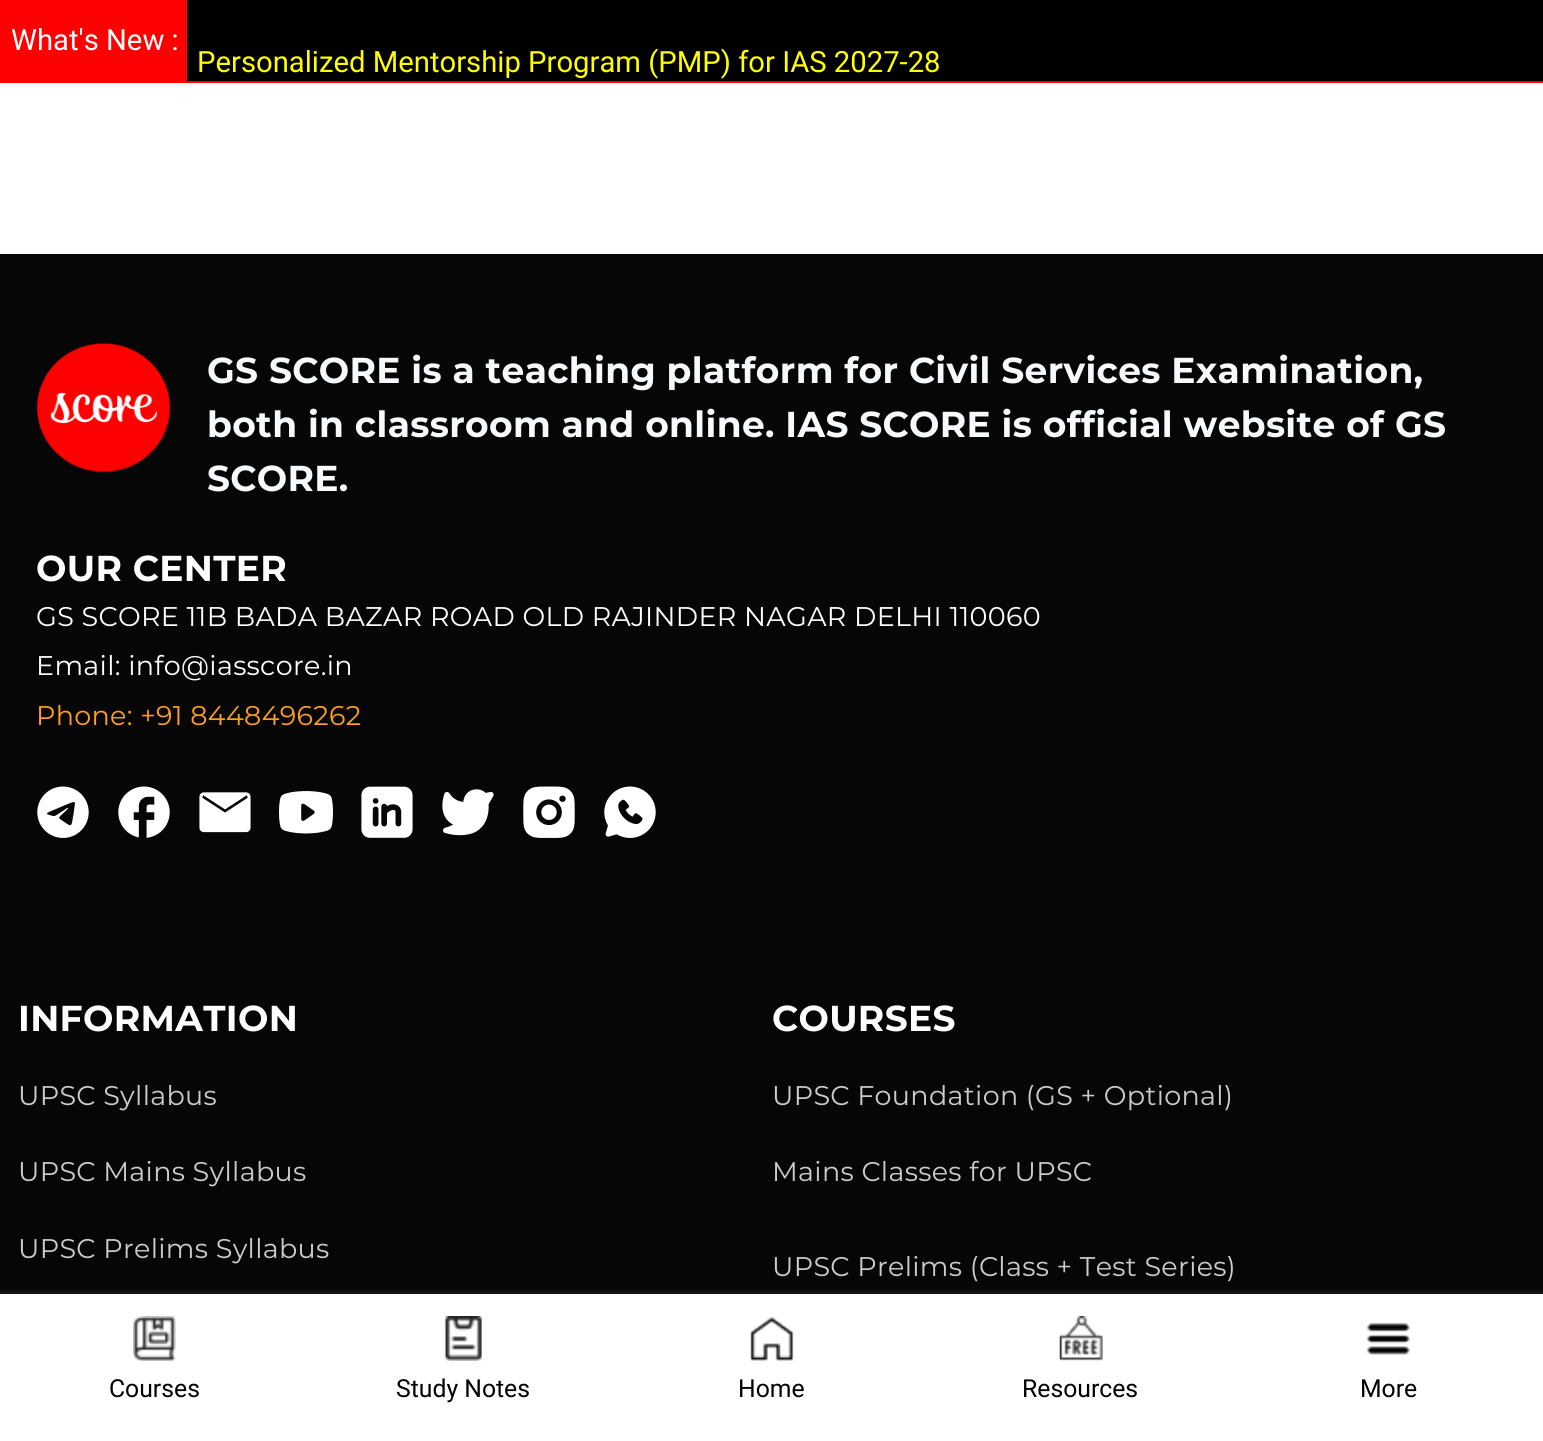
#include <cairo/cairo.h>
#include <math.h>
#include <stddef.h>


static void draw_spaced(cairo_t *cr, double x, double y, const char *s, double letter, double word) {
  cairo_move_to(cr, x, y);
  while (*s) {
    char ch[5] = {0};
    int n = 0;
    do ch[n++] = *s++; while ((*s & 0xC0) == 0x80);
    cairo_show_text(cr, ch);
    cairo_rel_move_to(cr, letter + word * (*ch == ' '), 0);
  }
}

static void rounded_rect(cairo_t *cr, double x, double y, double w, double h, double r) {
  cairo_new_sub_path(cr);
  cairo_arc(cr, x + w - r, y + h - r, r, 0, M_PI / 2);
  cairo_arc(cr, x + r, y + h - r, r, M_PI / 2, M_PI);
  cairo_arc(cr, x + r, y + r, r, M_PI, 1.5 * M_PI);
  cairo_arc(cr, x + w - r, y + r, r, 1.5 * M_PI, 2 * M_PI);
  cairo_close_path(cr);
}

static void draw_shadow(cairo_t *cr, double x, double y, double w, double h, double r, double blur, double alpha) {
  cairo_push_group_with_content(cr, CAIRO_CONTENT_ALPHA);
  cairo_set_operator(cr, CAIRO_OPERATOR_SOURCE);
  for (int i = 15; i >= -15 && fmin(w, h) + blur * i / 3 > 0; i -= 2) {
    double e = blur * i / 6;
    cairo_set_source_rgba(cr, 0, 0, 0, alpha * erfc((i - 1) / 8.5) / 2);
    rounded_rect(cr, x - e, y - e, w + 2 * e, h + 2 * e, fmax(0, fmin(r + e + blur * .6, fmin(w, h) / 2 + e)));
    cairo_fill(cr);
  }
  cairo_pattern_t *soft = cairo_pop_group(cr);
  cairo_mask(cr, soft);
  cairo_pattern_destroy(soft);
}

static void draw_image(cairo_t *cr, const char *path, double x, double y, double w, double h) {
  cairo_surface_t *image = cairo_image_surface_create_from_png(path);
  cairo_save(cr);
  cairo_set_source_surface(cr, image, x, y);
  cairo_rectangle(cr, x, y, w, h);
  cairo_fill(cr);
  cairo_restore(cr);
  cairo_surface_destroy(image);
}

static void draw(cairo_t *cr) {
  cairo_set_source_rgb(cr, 1, 1, 1);
  cairo_paint(cr);
  cairo_set_source_rgb(cr, 0, 0, 0);
  cairo_rectangle(cr, 187, 0, 1356, 81);
  cairo_fill(cr);
  cairo_set_source_rgb(cr, 1, 0, 0);
  cairo_rectangle(cr, 0, 81, 1543, 2);
  cairo_fill(cr);
  cairo_rectangle(cr, 0, 0, 187, 81);
  cairo_fill(cr);
  cairo_set_source_rgb(cr, 6 / 255.0, 6 / 255.0, 6 / 255.0);
  cairo_rectangle(cr, 0, 254, 1543, 1040);
  cairo_fill(cr);
  draw_image(cr, "images/1.png", 37, 342, 134, 131);
  draw_image(cr, "images/2.png", 37, 786, 52, 52);
  draw_image(cr, "images/3.png", 118, 786, 52, 52);
  draw_image(cr, "images/4.png", 199, 792, 52, 41);
  draw_image(cr, "images/5.png", 279, 791, 54, 43);
  draw_image(cr, "images/6.png", 361, 786, 52, 52);
  draw_image(cr, "images/7.png", 442, 789, 52, 47);
  draw_image(cr, "images/8.png", 523, 786, 52, 52);
  draw_image(cr, "images/9.png", 604, 786, 52, 52);
  cairo_set_source_rgb(cr, 50 / 255.0, 50 / 255.0, 50 / 255.0);
  draw_shadow(cr, 0, 1292, 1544, 148, 0, 3.5, 0.5);
  cairo_set_source_rgb(cr, 1, 1, 1);
  cairo_rectangle(cr, 0, 1294, 1543, 147);
  cairo_fill(cr);
  draw_image(cr, "images/10.png", 133, 1316, 43, 45);
  draw_image(cr, "images/11.png", 444, 1316, 38, 45);
  draw_image(cr, "images/12.png", 750, 1317, 44, 44);
  draw_image(cr, "images/13.png", 1059, 1316, 44, 45);
  draw_image(cr, "images/14.png", 1366, 1322, 44, 33);
  cairo_select_font_face(cr, "Roboto", CAIRO_FONT_SLANT_NORMAL, CAIRO_FONT_WEIGHT_NORMAL);
  cairo_set_font_size(cr, 29.25);
  cairo_move_to(cr, 11, 50);
  cairo_show_text(cr, "What's New :");
  cairo_set_source_rgb(cr, 1, 1, 0);
  cairo_move_to(cr, 197, 72);
  cairo_show_text(cr, "Personalized Mentorship Program (PMP) for IAS 2027-28");
  cairo_select_font_face(cr, "Montserrat", CAIRO_FONT_SLANT_NORMAL, CAIRO_FONT_WEIGHT_BOLD);
  cairo_set_font_size(cr, 36);
  cairo_set_source_rgb(cr, 248 / 255.0, 249 / 255.0, 250 / 255.0);
  draw_spaced(cr, 207, 383, "GS SCORE is a teaching platform for Civil Services Examination,", 0.35, 0);
  draw_spaced(cr, 207, 437, "both in classroom and online. IAS SCORE is official website of GS", 0.35, 0);
  draw_spaced(cr, 207, 491, "SCORE.", 0.35, 0);
  cairo_set_source_rgb(cr, 1, 1, 1);
  draw_spaced(cr, 36, 581, "OUR CENTER", 0.35, 0);
  cairo_select_font_face(cr, "Montserrat", CAIRO_FONT_SLANT_NORMAL, CAIRO_FONT_WEIGHT_NORMAL);
  cairo_set_font_size(cr, 27);
  draw_spaced(cr, 36, 626, "GS SCORE 11B BADA BAZAR ROAD OLD RAJINDER NAGAR DELHI 110060", 0.32, 0);
  draw_spaced(cr, 36, 675, "Email: info@iasscore.in", 0.32, 0);
  cairo_set_source_rgb(cr, 1, 159 / 255.0, 28 / 255.0);
  draw_spaced(cr, 36, 725, "Phone: +91 8448496262", 0.32, 0);
  cairo_select_font_face(cr, "Montserrat", CAIRO_FONT_SLANT_NORMAL, CAIRO_FONT_WEIGHT_BOLD);
  cairo_set_font_size(cr, 36);
  cairo_set_source_rgb(cr, 1, 1, 1);
  draw_spaced(cr, 18, 1031, "INFORMATION", 0.35, 0);
  cairo_select_font_face(cr, "Montserrat", CAIRO_FONT_SLANT_NORMAL, CAIRO_FONT_WEIGHT_NORMAL);
  cairo_set_font_size(cr, 27);
  cairo_set_source_rgb(cr, 204 / 255.0, 204 / 255.0, 204 / 255.0);
  draw_spaced(cr, 18, 1105, "UPSC Syllabus", 0.32, 0);
  draw_spaced(cr, 18, 1181, "UPSC Mains Syllabus", 0.32, 0);
  draw_spaced(cr, 18, 1258, "UPSC Prelims Syllabus", 0.32, 0);
  cairo_select_font_face(cr, "Montserrat", CAIRO_FONT_SLANT_NORMAL, CAIRO_FONT_WEIGHT_BOLD);
  cairo_set_font_size(cr, 36);
  cairo_set_source_rgb(cr, 1, 1, 1);
  draw_spaced(cr, 772, 1031, "COURSES", 0.35, 0);
  cairo_select_font_face(cr, "Montserrat", CAIRO_FONT_SLANT_NORMAL, CAIRO_FONT_WEIGHT_NORMAL);
  cairo_set_font_size(cr, 27);
  cairo_set_source_rgb(cr, 204 / 255.0, 204 / 255.0, 204 / 255.0);
  draw_spaced(cr, 772, 1105, "UPSC Foundation (GS + Optional)", 0.32, 0);
  draw_spaced(cr, 772, 1181, "Mains Classes for UPSC", 0.32, 0);
  draw_spaced(cr, 772, 1276, "UPSC Prelims (Class + Test Series)", 0.32, 0);
  cairo_select_font_face(cr, "Roboto", CAIRO_FONT_SLANT_NORMAL, CAIRO_FONT_WEIGHT_NORMAL);
  cairo_set_font_size(cr, 24.75);
  cairo_set_source_rgb(cr, 0, 0, 0);
  cairo_move_to(cr, 109, 1397);
  cairo_show_text(cr, "Courses");
  cairo_move_to(cr, 396, 1397);
  cairo_show_text(cr, "Study Notes");
  cairo_move_to(cr, 738, 1397);
  cairo_show_text(cr, "Home");
  cairo_move_to(cr, 1022, 1397);
  cairo_show_text(cr, "Resources");
  cairo_move_to(cr, 1360, 1397);
  cairo_show_text(cr, "More");
}

int main(void) {
  cairo_surface_t *surface = cairo_image_surface_create(CAIRO_FORMAT_RGB24, 1543, 1441);
  cairo_t *cr = cairo_create(surface);
  cairo_font_options_t *options = cairo_font_options_create();
  cairo_font_options_set_hint_metrics(options, CAIRO_HINT_METRICS_OFF);
  cairo_font_options_set_hint_style(options, CAIRO_HINT_STYLE_NONE);
  cairo_set_font_options(cr, options);
  cairo_set_miter_limit(cr, 4);
  draw(cr);
  cairo_surface_write_to_png(surface, "out.png");
  cairo_font_options_destroy(options);
  cairo_destroy(cr);
  cairo_surface_destroy(surface);
  return 0;
}
